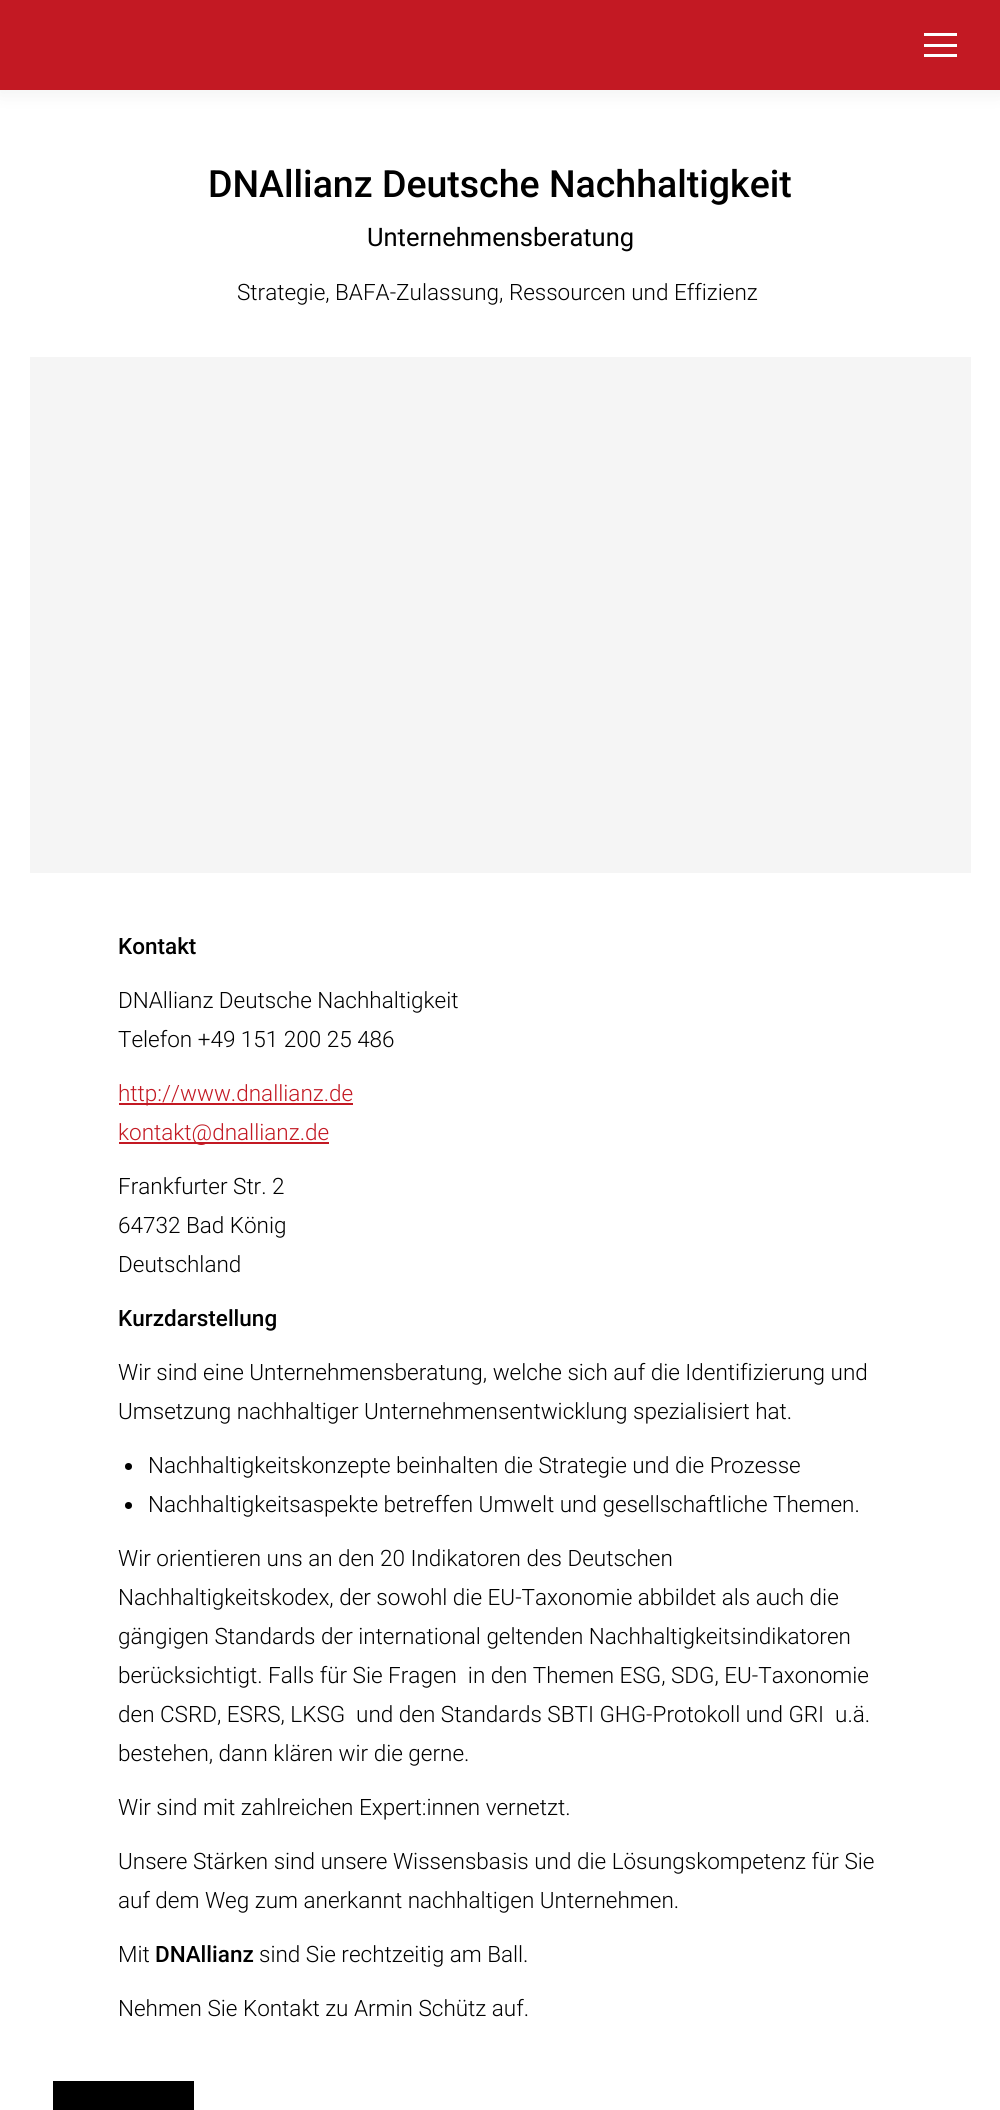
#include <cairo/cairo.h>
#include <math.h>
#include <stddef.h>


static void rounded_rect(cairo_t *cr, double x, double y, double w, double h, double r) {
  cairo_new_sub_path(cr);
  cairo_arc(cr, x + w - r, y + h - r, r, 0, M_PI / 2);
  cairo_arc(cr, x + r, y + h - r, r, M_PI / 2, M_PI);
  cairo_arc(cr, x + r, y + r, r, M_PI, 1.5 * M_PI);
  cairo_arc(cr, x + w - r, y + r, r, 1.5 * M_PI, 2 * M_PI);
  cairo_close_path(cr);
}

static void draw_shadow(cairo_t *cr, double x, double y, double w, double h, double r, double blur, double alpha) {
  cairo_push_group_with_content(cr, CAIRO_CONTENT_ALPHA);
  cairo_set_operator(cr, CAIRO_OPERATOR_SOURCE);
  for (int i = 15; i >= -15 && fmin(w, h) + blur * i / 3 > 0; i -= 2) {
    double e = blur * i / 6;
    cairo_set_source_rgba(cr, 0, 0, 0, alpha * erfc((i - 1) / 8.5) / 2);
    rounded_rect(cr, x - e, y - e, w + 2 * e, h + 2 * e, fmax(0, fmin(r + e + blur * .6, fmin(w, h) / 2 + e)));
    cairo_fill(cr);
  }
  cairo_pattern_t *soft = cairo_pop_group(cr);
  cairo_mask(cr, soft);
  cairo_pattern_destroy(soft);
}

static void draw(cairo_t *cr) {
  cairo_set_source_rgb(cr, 1, 1, 1);
  cairo_paint(cr);
  cairo_set_source_rgb(cr, 0, 0, 0);
  draw_shadow(cr, -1, -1, 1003, 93, 0, 11, 0.07);
  cairo_set_source_rgb(cr, 195 / 255.0, 25 / 255.0, 35 / 255.0);
  cairo_rectangle(cr, 0, 0, 1000, 90);
  cairo_fill(cr);
  cairo_set_source_rgb(cr, 1, 1, 1);
  cairo_rectangle(cr, 924, 33, 33, 3);
  cairo_fill(cr);
  cairo_rectangle(cr, 924, 44, 33, 3);
  cairo_fill(cr);
  cairo_rectangle(cr, 924, 54, 33, 3);
  cairo_fill(cr);
  cairo_set_source_rgb(cr, 245 / 255.0, 245 / 255.0, 245 / 255.0);
  cairo_rectangle(cr, 30, 357, 941, 516);
  cairo_fill(cr);
  cairo_set_source_rgb(cr, 195 / 255.0, 25 / 255.0, 35 / 255.0);
  cairo_rectangle(cr, 119, 1103, 234, 2);
  cairo_fill(cr);
  cairo_rectangle(cr, 119, 1142, 210, 2);
  cairo_fill(cr);
  cairo_set_source_rgb(cr, 0, 0, 0);
  cairo_arc(cr, 128.5, 1466.5, 3.5, 0, 2 * M_PI);
  cairo_fill(cr);
  cairo_arc(cr, 128.5, 1505.5, 3.5, 0, 2 * M_PI);
  cairo_fill(cr);
  cairo_rectangle(cr, 53, 2081, 141, 29);
  cairo_fill(cr);
  cairo_select_font_face(cr, "Roboto Medium", CAIRO_FONT_SLANT_NORMAL, CAIRO_FONT_WEIGHT_NORMAL);
  cairo_set_font_size(cr, 37.5);
  cairo_move_to(cr, 208, 197);
  cairo_show_text(cr, "DNAllianz Deutsche Nachhaltigkeit");
  cairo_select_font_face(cr, "Roboto", CAIRO_FONT_SLANT_NORMAL, CAIRO_FONT_WEIGHT_NORMAL);
  cairo_set_font_size(cr, 25.5);
  cairo_move_to(cr, 367, 246);
  cairo_show_text(cr, "Unternehmensberatung");
  cairo_select_font_face(cr, "Roboto Light", CAIRO_FONT_SLANT_NORMAL, CAIRO_FONT_WEIGHT_NORMAL);
  cairo_set_font_size(cr, 22.5);
  cairo_move_to(cr, 237, 300);
  cairo_show_text(cr, "Strategie, BAFA-Zulassung, Ressourcen und Effizienz");
  cairo_select_font_face(cr, "Roboto Medium", CAIRO_FONT_SLANT_NORMAL, CAIRO_FONT_WEIGHT_NORMAL);
  cairo_move_to(cr, 118, 954);
  cairo_show_text(cr, "Kontakt");
  cairo_select_font_face(cr, "Roboto Light", CAIRO_FONT_SLANT_NORMAL, CAIRO_FONT_WEIGHT_NORMAL);
  cairo_move_to(cr, 118, 1008);
  cairo_show_text(cr, "DNAllianz Deutsche Nachhaltigkeit");
  cairo_move_to(cr, 118, 1047);
  cairo_show_text(cr, "Telefon +49 151 200 25 486");
  cairo_set_source_rgb(cr, 195 / 255.0, 25 / 255.0, 35 / 255.0);
  cairo_move_to(cr, 118, 1101);
  cairo_show_text(cr, "http://www.dnallianz.de");
  cairo_move_to(cr, 118, 1140);
  cairo_show_text(cr, "kontakt@dnallianz.de");
  cairo_set_source_rgb(cr, 0, 0, 0);
  cairo_move_to(cr, 118, 1194);
  cairo_show_text(cr, "Frankfurter Str. 2");
  cairo_move_to(cr, 118, 1233);
  cairo_show_text(cr, "64732 Bad König");
  cairo_move_to(cr, 118, 1272);
  cairo_show_text(cr, "Deutschland");
  cairo_select_font_face(cr, "Roboto Medium", CAIRO_FONT_SLANT_NORMAL, CAIRO_FONT_WEIGHT_NORMAL);
  cairo_move_to(cr, 118, 1326);
  cairo_show_text(cr, "Kurzdarstellung");
  cairo_select_font_face(cr, "Roboto Light", CAIRO_FONT_SLANT_NORMAL, CAIRO_FONT_WEIGHT_NORMAL);
  cairo_move_to(cr, 118, 1380);
  cairo_show_text(cr, "Wir sind eine Unternehmensberatung, welche sich auf die Identifizierung und");
  cairo_move_to(cr, 118, 1419);
  cairo_show_text(cr, "Umsetzung nachhaltiger Unternehmensentwicklung spezialisiert hat.");
  cairo_move_to(cr, 148, 1473);
  cairo_show_text(cr, "Nachhaltigkeitskonzepte beinhalten die Strategie und die Prozesse");
  cairo_move_to(cr, 148, 1512);
  cairo_show_text(cr, "Nachhaltigkeitsaspekte betreffen Umwelt und gesellschaftliche Themen.");
  cairo_move_to(cr, 118, 1566);
  cairo_show_text(cr, "Wir orientieren uns an den 20 Indikatoren des Deutschen");
  cairo_move_to(cr, 118, 1605);
  cairo_show_text(cr, "Nachhaltigkeitskodex, der sowohl die EU-Taxonomie abbildet als auch die");
  cairo_move_to(cr, 118, 1644);
  cairo_show_text(cr, "gängigen Standards der international geltenden Nachhaltigkeitsindikatoren");
  cairo_move_to(cr, 118, 1683);
  cairo_show_text(cr, "berücksichtigt. Falls für Sie Fragen  in den Themen ESG, SDG, EU-Taxonomie");
  cairo_move_to(cr, 118, 1722);
  cairo_show_text(cr, "den CSRD, ESRS, LKSG  und den Standards SBTI GHG-Protokoll und GRI  u.ä.");
  cairo_move_to(cr, 118, 1761);
  cairo_show_text(cr, "bestehen, dann klären wir die gerne.");
  cairo_move_to(cr, 118, 1815);
  cairo_show_text(cr, "Wir sind mit zahlreichen Expert:innen vernetzt.");
  cairo_move_to(cr, 118, 1869);
  cairo_show_text(cr, "Unsere Stärken sind unsere Wissensbasis und die Lösungskompetenz für Sie");
  cairo_move_to(cr, 118, 1908);
  cairo_show_text(cr, "auf dem Weg zum anerkannt nachhaltigen Unternehmen.");
  cairo_move_to(cr, 118, 1962);
  cairo_show_text(cr, "Mit");
  cairo_select_font_face(cr, "Roboto Medium", CAIRO_FONT_SLANT_NORMAL, CAIRO_FONT_WEIGHT_NORMAL);
  cairo_move_to(cr, 155, 1962);
  cairo_show_text(cr, "DNAllianz");
  cairo_select_font_face(cr, "Roboto Light", CAIRO_FONT_SLANT_NORMAL, CAIRO_FONT_WEIGHT_NORMAL);
  cairo_move_to(cr, 259, 1962);
  cairo_show_text(cr, "sind Sie rechtzeitig am Ball.");
  cairo_move_to(cr, 118, 2016);
  cairo_show_text(cr, "Nehmen Sie Kontakt zu Armin Schütz auf.");
}

int main(void) {
  cairo_surface_t *surface = cairo_image_surface_create(CAIRO_FORMAT_RGB24, 1000, 2110);
  cairo_t *cr = cairo_create(surface);
  cairo_font_options_t *options = cairo_font_options_create();
  cairo_font_options_set_hint_metrics(options, CAIRO_HINT_METRICS_OFF);
  cairo_font_options_set_hint_style(options, CAIRO_HINT_STYLE_NONE);
  cairo_set_font_options(cr, options);
  cairo_set_miter_limit(cr, 4);
  draw(cr);
  cairo_surface_write_to_png(surface, "out.png");
  cairo_font_options_destroy(options);
  cairo_destroy(cr);
  cairo_surface_destroy(surface);
  return 0;
}
